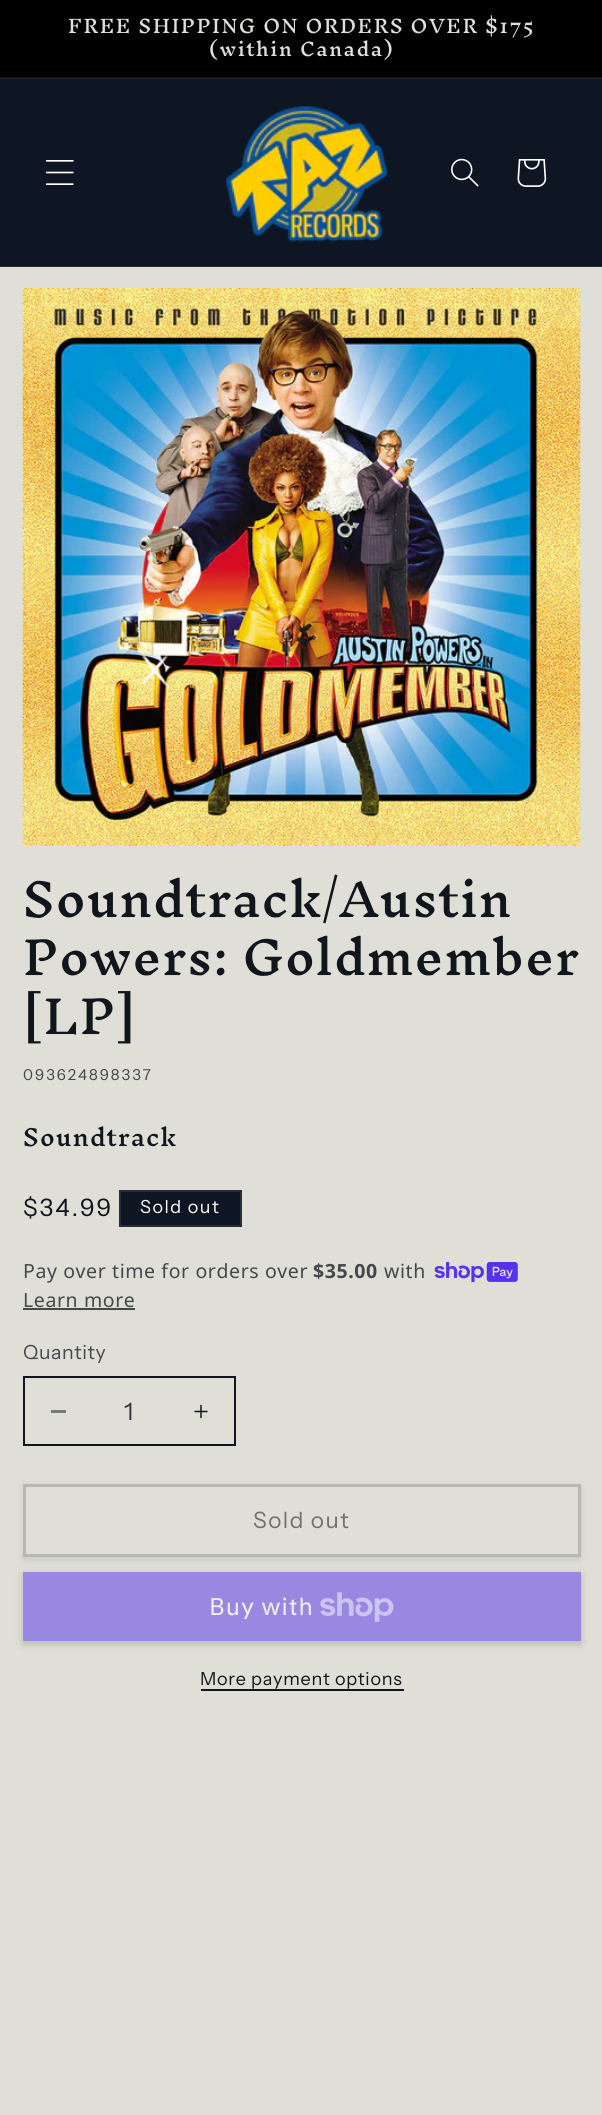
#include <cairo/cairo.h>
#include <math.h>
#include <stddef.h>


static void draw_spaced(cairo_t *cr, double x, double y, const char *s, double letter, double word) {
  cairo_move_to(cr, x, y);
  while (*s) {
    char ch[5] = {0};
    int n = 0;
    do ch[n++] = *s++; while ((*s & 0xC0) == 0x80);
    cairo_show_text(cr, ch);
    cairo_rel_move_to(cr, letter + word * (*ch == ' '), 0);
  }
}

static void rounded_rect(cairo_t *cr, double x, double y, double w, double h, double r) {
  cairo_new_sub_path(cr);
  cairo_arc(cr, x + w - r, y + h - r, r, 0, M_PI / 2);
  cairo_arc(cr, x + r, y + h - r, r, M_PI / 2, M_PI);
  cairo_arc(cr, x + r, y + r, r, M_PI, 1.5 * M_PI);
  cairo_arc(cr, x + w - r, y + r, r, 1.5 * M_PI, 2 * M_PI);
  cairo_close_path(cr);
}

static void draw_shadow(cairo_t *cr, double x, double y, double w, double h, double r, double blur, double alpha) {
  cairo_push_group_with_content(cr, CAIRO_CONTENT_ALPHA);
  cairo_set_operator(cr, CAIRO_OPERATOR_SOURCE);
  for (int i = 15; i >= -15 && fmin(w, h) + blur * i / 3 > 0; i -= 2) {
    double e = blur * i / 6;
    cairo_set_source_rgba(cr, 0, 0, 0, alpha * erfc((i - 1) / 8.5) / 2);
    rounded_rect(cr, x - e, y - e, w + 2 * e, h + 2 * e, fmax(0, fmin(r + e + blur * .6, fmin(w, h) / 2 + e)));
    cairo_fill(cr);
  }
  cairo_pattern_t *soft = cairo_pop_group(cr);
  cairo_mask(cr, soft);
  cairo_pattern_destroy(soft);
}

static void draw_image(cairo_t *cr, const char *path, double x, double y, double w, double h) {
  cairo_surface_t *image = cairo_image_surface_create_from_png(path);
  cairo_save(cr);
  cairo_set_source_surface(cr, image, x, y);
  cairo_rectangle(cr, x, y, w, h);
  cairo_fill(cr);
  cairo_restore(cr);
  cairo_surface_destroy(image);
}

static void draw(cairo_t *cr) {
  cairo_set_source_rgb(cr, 223 / 255.0, 223 / 255.0, 216 / 255.0);
  cairo_paint(cr);
  cairo_set_source_rgb(cr, 226 / 255.0, 226 / 255.0, 219 / 255.0);
  cairo_rectangle(cr, 0, 267, 602, 1);
  cairo_fill(cr);
  cairo_set_source_rgb(cr, 0, 0, 0);
  cairo_rectangle(cr, 0, 0, 602, 77);
  cairo_fill(cr);
  cairo_set_source_rgb(cr, 18 / 255.0, 18 / 255.0, 17 / 255.0);
  cairo_rectangle(cr, 0, 77, 602, 1);
  cairo_fill(cr);
  cairo_set_source_rgb(cr, 14 / 255.0, 22 / 255.0, 35 / 255.0);
  cairo_rectangle(cr, 0, 79, 602, 187);
  cairo_fill(cr);
  cairo_set_source_rgb(cr, 31 / 255.0, 38 / 255.0, 49 / 255.0);
  cairo_rectangle(cr, 0, 78, 602, 1);
  cairo_fill(cr);
  cairo_set_source_rgb(cr, 33 / 255.0, 41 / 255.0, 53 / 255.0);
  cairo_rectangle(cr, 0, 266, 602, 1);
  cairo_fill(cr);
  draw_image(cr, "images/1.png", 45, 160, 29, 25);
  draw_image(cr, "images/2.png", 225, 106, 163, 136);
  draw_image(cr, "images/3.png", 451, 158, 28, 29);
  draw_image(cr, "images/4.png", 517, 159, 30, 28);
  draw_image(cr, "images/5.png", 22, 288, 559, 558);
  cairo_set_source_rgb(cr, 14 / 255.0, 22 / 255.0, 35 / 255.0);
  cairo_rectangle(cr, 120, 1191, 121, 35);
  cairo_fill_preserve(cr);
  cairo_set_source_rgb(cr, 38 / 255.0, 45 / 255.0, 57 / 255.0);
  cairo_stroke(cr);
  draw_image(cr, "images/6.png", 434, 1262, 84, 21);
  cairo_set_source_rgb(cr, 69 / 255.0, 72 / 255.0, 75 / 255.0);
  cairo_rectangle(cr, 23, 1308, 112, 2);
  cairo_fill(cr);
  cairo_set_source_rgb(cr, 120 / 255.0, 122 / 255.0, 122 / 255.0);
  cairo_rectangle(cr, 51, 1410, 15, 3);
  cairo_fill(cr);
  draw_image(cr, "images/7.png", 194, 1404, 14, 15);
  cairo_rectangle(cr, 24, 1377, 211, 68);
  cairo_set_source_rgb(cr, 17 / 255.0, 21 / 255.0, 28 / 255.0);
  cairo_stroke(cr);
  cairo_save(cr);
  cairo_set_fill_rule(cr, CAIRO_FILL_RULE_EVEN_ODD);
  cairo_new_path(cr);
  cairo_move_to(cr, 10, 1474);
  cairo_line_to(cr, 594, 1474);
  cairo_line_to(cr, 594, 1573);
  cairo_line_to(cr, 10, 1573);
  cairo_close_path(cr);
  cairo_move_to(cr, 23, 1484);
  cairo_line_to(cr, 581, 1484);
  cairo_line_to(cr, 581, 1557);
  cairo_line_to(cr, 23, 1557);
  cairo_close_path(cr);
  cairo_clip(cr);
  cairo_set_source_rgb(cr, 120 / 255.0, 122 / 255.0, 122 / 255.0);
  draw_shadow(cr, 23, 1487, 558, 73, 0, 4, 0.2);
  cairo_restore(cr);
  cairo_rectangle(cr, 24.5, 1485.5, 555, 70);
  cairo_set_source_rgb(cr, 184 / 255.0, 184 / 255.0, 178 / 255.0);
  cairo_set_line_width(cr, 3);
  cairo_stroke(cr);
  cairo_save(cr);
  cairo_set_fill_rule(cr, CAIRO_FILL_RULE_EVEN_ODD);
  cairo_new_path(cr);
  cairo_move_to(cr, 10, 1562);
  cairo_line_to(cr, 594, 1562);
  cairo_line_to(cr, 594, 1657);
  cairo_line_to(cr, 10, 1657);
  cairo_close_path(cr);
  cairo_move_to(cr, 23, 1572);
  cairo_line_to(cr, 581, 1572);
  cairo_line_to(cr, 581, 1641);
  cairo_line_to(cr, 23, 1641);
  cairo_close_path(cr);
  cairo_clip(cr);
  cairo_set_source_rgb(cr, 17 / 255.0, 21 / 255.0, 28 / 255.0);
  draw_shadow(cr, 23, 1575, 558, 69, 0, 4, 0.2);
  cairo_restore(cr);
  cairo_set_source_rgba(cr, 84 / 255.0, 51 / 255.0, 235 / 255.0, 0.5);
  cairo_rectangle(cr, 23, 1572, 558, 69);
  cairo_fill(cr);
  draw_image(cr, "images/8.png", 320, 1592, 74, 30);
  cairo_set_source_rgb(cr, 17 / 255.0, 21 / 255.0, 28 / 255.0);
  cairo_rectangle(cr, 201, 1689, 203, 2);
  cairo_fill(cr);
  cairo_select_font_face(cr, "Inknut Antiqua Medium", CAIRO_FONT_SLANT_NORMAL, CAIRO_FONT_WEIGHT_NORMAL);
  cairo_set_font_size(cr, 18);
  cairo_set_source_rgb(cr, 223 / 255.0, 223 / 255.0, 216 / 255.0);
  draw_spaced(cr, 68, 33, "FREE SHIPPING ON ORDERS OVER $175", 1.5, 0);
  draw_spaced(cr, 209, 56, "(within Canada)", 1.5, 0);
  cairo_set_font_size(cr, 45);
  cairo_set_source_rgb(cr, 17 / 255.0, 21 / 255.0, 28 / 255.0);
  draw_spaced(cr, 23, 917, "Soundtrack/Austin", 0.9, 0);
  draw_spaced(cr, 23, 975, "Powers: Goldmember", 0.9, 0);
  draw_spaced(cr, 23, 1034, "[LP]", 0.9, 0);
  cairo_select_font_face(cr, "Instrument Sans", CAIRO_FONT_SLANT_NORMAL, CAIRO_FONT_WEIGHT_NORMAL);
  cairo_set_font_size(cr, 15);
  cairo_set_source_rgb(cr, 69 / 255.0, 72 / 255.0, 75 / 255.0);
  draw_spaced(cr, 23, 1080, "093624898337", 2, 0);
  cairo_select_font_face(cr, "Inknut Antiqua Medium", CAIRO_FONT_SLANT_NORMAL, CAIRO_FONT_WEIGHT_NORMAL);
  cairo_set_font_size(cr, 22.5);
  cairo_set_source_rgb(cr, 17 / 255.0, 21 / 255.0, 28 / 255.0);
  draw_spaced(cr, 23, 1146, "Soundtrack", 0.9, 0);
  cairo_select_font_face(cr, "Instrument Sans", CAIRO_FONT_SLANT_NORMAL, CAIRO_FONT_WEIGHT_NORMAL);
  cairo_set_font_size(cr, 24);
  draw_spaced(cr, 23, 1216, "$34.99", 2, 0);
  cairo_set_font_size(cr, 18);
  cairo_set_source_rgb(cr, 1, 1, 1);
  draw_spaced(cr, 140, 1213, "Sold out", 1.5, 0);
  cairo_select_font_face(cr, "Noto Sans", CAIRO_FONT_SLANT_NORMAL, CAIRO_FONT_WEIGHT_NORMAL);
  cairo_set_font_size(cr, 19.5);
  cairo_set_source_rgb(cr, 69 / 255.0, 72 / 255.0, 75 / 255.0);
  draw_spaced(cr, 23, 1278, "Pay over time for orders over", 0.6, 0);
  cairo_select_font_face(cr, "Noto Sans", CAIRO_FONT_SLANT_NORMAL, CAIRO_FONT_WEIGHT_BOLD);
  draw_spaced(cr, 313, 1278, "$35.00", 0.6, 0);
  cairo_select_font_face(cr, "Noto Sans", CAIRO_FONT_SLANT_NORMAL, CAIRO_FONT_WEIGHT_NORMAL);
  draw_spaced(cr, 384, 1278, "with", 0.6, 0);
  draw_spaced(cr, 23, 1307, "Learn more", 0.6, 0);
  cairo_select_font_face(cr, "Instrument Sans", CAIRO_FONT_SLANT_NORMAL, CAIRO_FONT_WEIGHT_NORMAL);
  draw_spaced(cr, 23, 1359, "Quantity", 0.6, 0);
  cairo_set_font_size(cr, 24);
  cairo_set_source_rgb(cr, 48 / 255.0, 51 / 255.0, 56 / 255.0);
  cairo_move_to(cr, 124, 1420);
  cairo_show_text(cr, "1");
  cairo_set_font_size(cr, 22.5);
  cairo_set_source_rgb(cr, 112 / 255.0, 112 / 255.0, 108 / 255.0);
  draw_spaced(cr, 253, 1528, "Sold out", 1.5, 0);
  cairo_select_font_face(cr, "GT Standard", CAIRO_FONT_SLANT_NORMAL, CAIRO_FONT_WEIGHT_NORMAL);
  cairo_set_font_size(cr, 24);
  cairo_set_source_rgb(cr, 239 / 255.0, 239 / 255.0, 236 / 255.0);
  draw_spaced(cr, 209, 1615, "Buy with", 0.9, 0);
  cairo_select_font_face(cr, "Instrument Sans", CAIRO_FONT_SLANT_NORMAL, CAIRO_FONT_WEIGHT_NORMAL);
  cairo_set_font_size(cr, 18);
  cairo_set_source_rgb(cr, 17 / 255.0, 21 / 255.0, 28 / 255.0);
  draw_spaced(cr, 200, 1685, "More payment options", 0.75, 0);
}

int main(void) {
  cairo_surface_t *surface = cairo_image_surface_create(CAIRO_FORMAT_RGB24, 602, 2115);
  cairo_t *cr = cairo_create(surface);
  cairo_font_options_t *options = cairo_font_options_create();
  cairo_font_options_set_hint_metrics(options, CAIRO_HINT_METRICS_OFF);
  cairo_font_options_set_hint_style(options, CAIRO_HINT_STYLE_NONE);
  cairo_set_font_options(cr, options);
  cairo_set_miter_limit(cr, 4);
  draw(cr);
  cairo_surface_write_to_png(surface, "out.png");
  cairo_font_options_destroy(options);
  cairo_destroy(cr);
  cairo_surface_destroy(surface);
  return 0;
}
